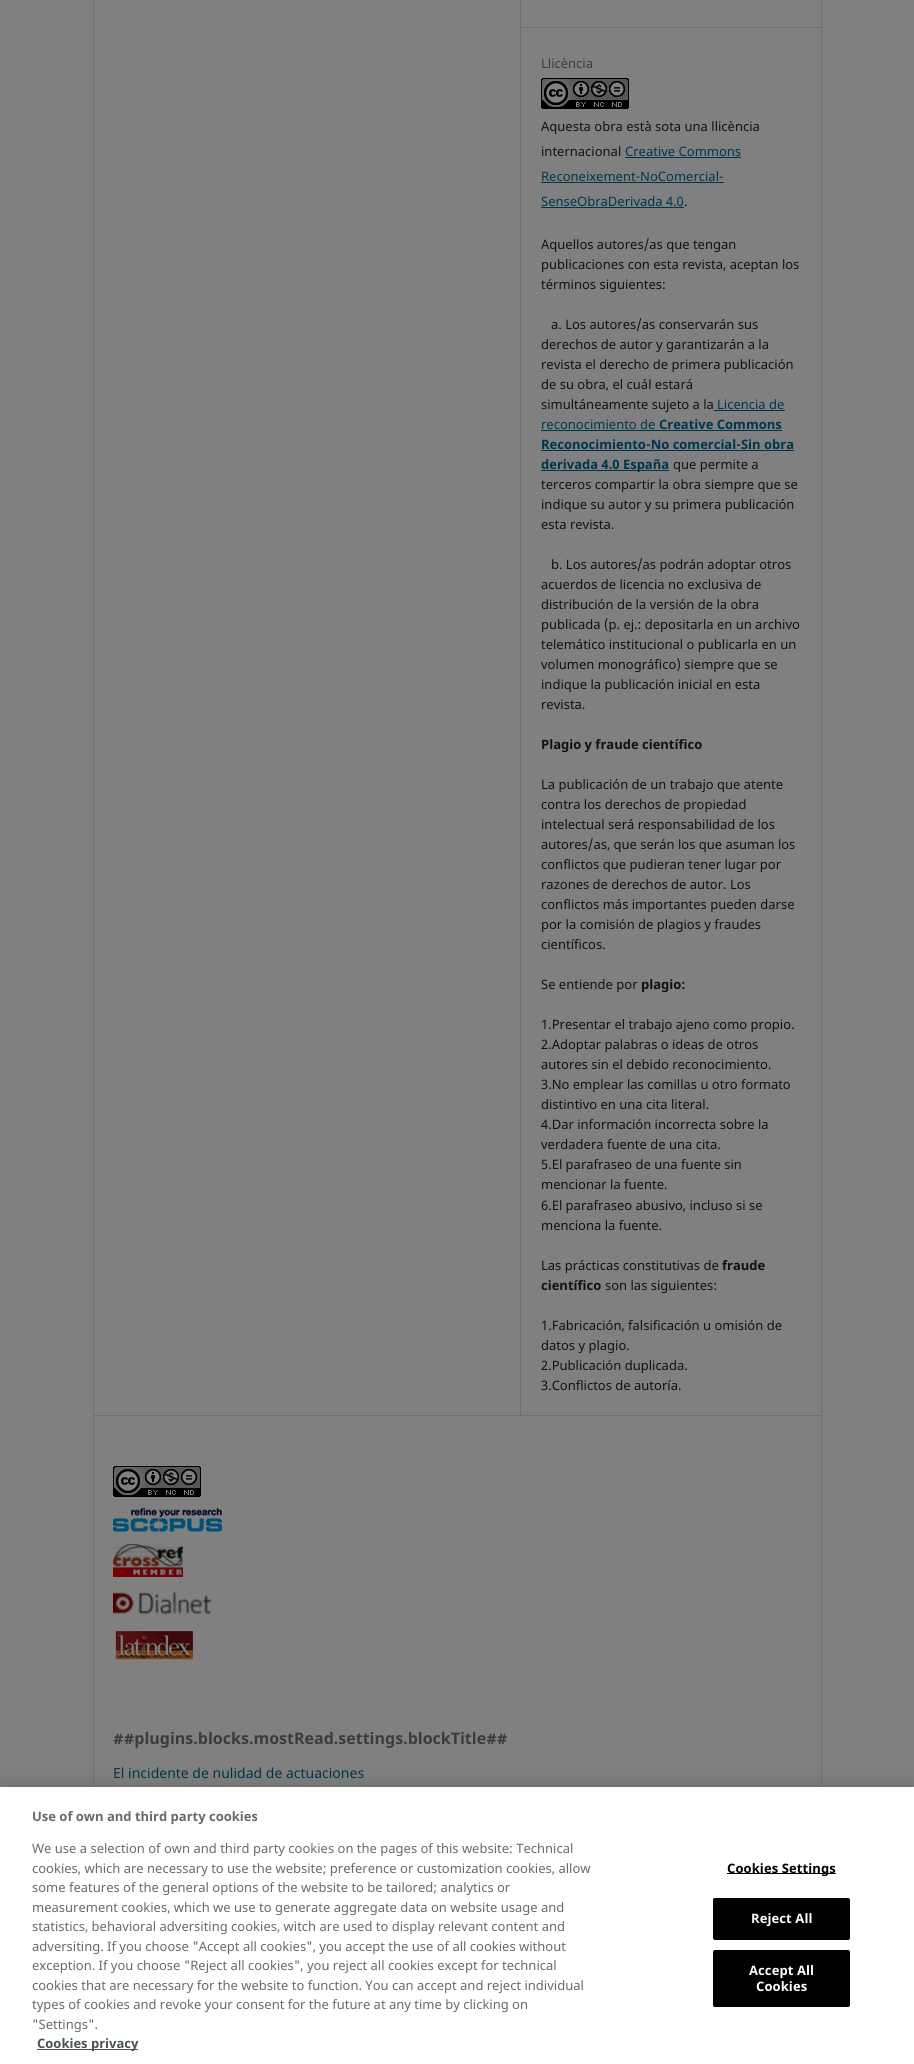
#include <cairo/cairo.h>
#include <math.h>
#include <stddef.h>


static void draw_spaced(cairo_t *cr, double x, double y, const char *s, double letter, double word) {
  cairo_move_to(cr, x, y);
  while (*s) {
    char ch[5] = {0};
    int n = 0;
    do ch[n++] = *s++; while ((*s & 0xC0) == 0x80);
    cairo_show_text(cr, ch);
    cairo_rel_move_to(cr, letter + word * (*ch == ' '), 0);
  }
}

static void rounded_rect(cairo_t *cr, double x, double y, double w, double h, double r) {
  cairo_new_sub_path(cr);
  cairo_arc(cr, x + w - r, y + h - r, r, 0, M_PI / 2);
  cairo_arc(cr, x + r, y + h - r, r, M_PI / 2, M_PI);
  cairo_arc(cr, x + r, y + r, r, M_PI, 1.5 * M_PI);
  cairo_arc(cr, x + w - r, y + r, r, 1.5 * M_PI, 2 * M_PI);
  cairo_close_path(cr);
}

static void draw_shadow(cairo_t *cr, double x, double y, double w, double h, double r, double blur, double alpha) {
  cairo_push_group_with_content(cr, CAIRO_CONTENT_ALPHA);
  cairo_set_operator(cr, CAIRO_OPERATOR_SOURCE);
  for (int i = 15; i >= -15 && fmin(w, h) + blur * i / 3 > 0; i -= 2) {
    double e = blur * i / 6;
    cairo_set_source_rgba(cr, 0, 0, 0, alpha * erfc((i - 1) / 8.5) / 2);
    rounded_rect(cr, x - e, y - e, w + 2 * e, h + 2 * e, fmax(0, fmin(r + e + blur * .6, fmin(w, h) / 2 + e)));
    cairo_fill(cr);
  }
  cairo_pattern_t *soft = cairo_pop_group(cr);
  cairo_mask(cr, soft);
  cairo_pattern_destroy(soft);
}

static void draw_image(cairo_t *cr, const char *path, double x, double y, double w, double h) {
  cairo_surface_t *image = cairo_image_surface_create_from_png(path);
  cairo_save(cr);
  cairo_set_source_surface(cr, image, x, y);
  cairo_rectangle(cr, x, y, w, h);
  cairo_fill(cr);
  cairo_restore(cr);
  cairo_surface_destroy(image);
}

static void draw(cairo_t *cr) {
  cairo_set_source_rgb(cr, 128 / 255.0, 128 / 255.0, 128 / 255.0);
  cairo_paint(cr);
  cairo_set_source_rgb(cr, 111 / 255.0, 111 / 255.0, 111 / 255.0);
  cairo_rectangle(cr, 93, 1415, 728, 1);
  cairo_fill(cr);
  cairo_rectangle(cr, 93, 0, 1, 1787);
  cairo_fill(cr);
  cairo_rectangle(cr, 520, 0, 1, 1415);
  cairo_fill(cr);
  cairo_rectangle(cr, 521, 27, 300, 1);
  cairo_fill(cr);
  draw_image(cr, "images/1.png", 541, 78, 88, 31);
  cairo_set_source_rgb(cr, 0, 52 / 255.0, 76 / 255.0);
  cairo_rectangle(cr, 625, 157, 116, 1);
  cairo_fill(cr);
  cairo_rectangle(cr, 541, 182, 183, 1);
  cairo_fill(cr);
  cairo_rectangle(cr, 541, 207, 143, 1);
  cairo_fill(cr);
  cairo_rectangle(cr, 714, 410, 71, 1);
  cairo_fill(cr);
  cairo_rectangle(cr, 541, 430, 241, 1);
  cairo_fill(cr);
  cairo_rectangle(cr, 541, 450, 253, 1);
  cairo_fill(cr);
  cairo_rectangle(cr, 541, 470, 128, 1);
  cairo_fill(cr);
  cairo_set_source_rgb(cr, 111 / 255.0, 111 / 255.0, 111 / 255.0);
  cairo_rectangle(cr, 821, 0, 1, 1787);
  cairo_fill(cr);
  draw_image(cr, "images/1.png", 113, 1466, 88, 31);
  draw_image(cr, "images/2.png", 113, 1507, 109, 26);
  draw_image(cr, "images/3.png", 113, 1544, 70, 33);
  draw_image(cr, "images/4.png", 113, 1592, 99, 28);
  draw_image(cr, "images/5.png", 115, 1631, 78, 29);
  cairo_set_source_rgb(cr, 0, 0, 0);
  draw_shadow(cr, 0, 1787, 914, 277, 0, 9, 0.2);
  cairo_set_source_rgb(cr, 1, 1, 1);
  cairo_rectangle(cr, 0, 1787, 914, 277);
  cairo_fill(cr);
  cairo_set_source_rgb(cr, 74 / 255.0, 83 / 255.0, 84 / 255.0);
  cairo_rectangle(cr, 37, 2049, 101, 1);
  cairo_fill(cr);
  cairo_set_source_rgb(cr, 0, 0, 0);
  cairo_rectangle(cr, 727, 1873, 109, 1);
  cairo_fill(cr);
  rounded_rect(cr, 713.5, 1898.5, 136, 41, 1.5);
  cairo_fill_preserve(cr);
  cairo_set_line_width(cr, 1);
  cairo_stroke(cr);
  rounded_rect(cr, 713.5, 1950.5, 136, 56, 1.5);
  cairo_fill_preserve(cr);
  cairo_stroke(cr);
  cairo_select_font_face(cr, "Noto Sans", CAIRO_FONT_SLANT_NORMAL, CAIRO_FONT_WEIGHT_NORMAL);
  cairo_set_font_size(cr, 13);
  cairo_set_source_rgb(cr, 59 / 255.0, 59 / 255.0, 59 / 255.0);
  cairo_move_to(cr, 541, 68);
  cairo_show_text(cr, "Llicència");
  cairo_set_source_rgb(cr, 17 / 255.0, 17 / 255.0, 17 / 255.0);
  cairo_move_to(cr, 541, 131);
  cairo_show_text(cr, "Aquesta obra està sota una llicència");
  cairo_move_to(cr, 541, 156);
  cairo_show_text(cr, "internacional");
  cairo_set_source_rgb(cr, 0, 52 / 255.0, 76 / 255.0);
  cairo_move_to(cr, 625, 156);
  cairo_show_text(cr, "Creative Commons");
  cairo_move_to(cr, 541, 181);
  cairo_show_text(cr, "Reconeixement-NoComercial-");
  cairo_move_to(cr, 541, 206);
  cairo_show_text(cr, "SenseObraDerivada 4.0");
  cairo_set_source_rgb(cr, 17 / 255.0, 17 / 255.0, 17 / 255.0);
  cairo_move_to(cr, 684, 206);
  cairo_show_text(cr, ".");
  cairo_move_to(cr, 541, 249);
  cairo_show_text(cr, "Aquellos autores/as que tengan");
  cairo_move_to(cr, 541, 269);
  cairo_show_text(cr, "publicaciones con esta revista, aceptan los");
  cairo_move_to(cr, 541, 289);
  cairo_show_text(cr, "términos siguientes:");
  cairo_move_to(cr, 551, 329);
  cairo_show_text(cr, "a. Los autores/as conservarán sus");
  cairo_move_to(cr, 541, 349);
  cairo_show_text(cr, "derechos de autor y garantizarán a la");
  cairo_move_to(cr, 541, 369);
  cairo_show_text(cr, "revista el derecho de primera publicación");
  cairo_move_to(cr, 541, 389);
  cairo_show_text(cr, "de su obra, el cuál estará");
  cairo_move_to(cr, 541, 409);
  cairo_show_text(cr, "simultáneamente sujeto a la");
  cairo_set_source_rgb(cr, 0, 52 / 255.0, 76 / 255.0);
  cairo_move_to(cr, 717, 409);
  cairo_show_text(cr, "Licencia de");
  cairo_move_to(cr, 541, 429);
  cairo_show_text(cr, "reconocimiento de");
  cairo_select_font_face(cr, "Noto Sans", CAIRO_FONT_SLANT_NORMAL, CAIRO_FONT_WEIGHT_BOLD);
  cairo_move_to(cr, 659, 429);
  cairo_show_text(cr, "Creative Commons");
  cairo_move_to(cr, 541, 449);
  cairo_show_text(cr, "Reconocimiento-No comercial-Sin obra");
  cairo_move_to(cr, 541, 469);
  cairo_show_text(cr, "derivada 4.0 España");
  cairo_select_font_face(cr, "Noto Sans", CAIRO_FONT_SLANT_NORMAL, CAIRO_FONT_WEIGHT_NORMAL);
  cairo_set_source_rgb(cr, 17 / 255.0, 17 / 255.0, 17 / 255.0);
  cairo_move_to(cr, 673, 469);
  cairo_show_text(cr, "que permite a");
  cairo_move_to(cr, 541, 489);
  cairo_show_text(cr, "terceros compartir la obra siempre que se");
  cairo_move_to(cr, 541, 509);
  cairo_show_text(cr, "indique su autor y su primera publicación");
  cairo_move_to(cr, 541, 529);
  cairo_show_text(cr, "esta revista.");
  cairo_move_to(cr, 551, 569);
  cairo_show_text(cr, "b. Los autores/as podrán adoptar otros");
  cairo_move_to(cr, 541, 589);
  cairo_show_text(cr, "acuerdos de licencia no exclusiva de");
  cairo_move_to(cr, 541, 609);
  cairo_show_text(cr, "distribución de la versión de la obra");
  cairo_move_to(cr, 541, 629);
  cairo_show_text(cr, "publicada (p. ej.: depositarla en un archivo");
  cairo_move_to(cr, 541, 649);
  cairo_show_text(cr, "telemático institucional o publicarla en un");
  cairo_move_to(cr, 541, 669);
  cairo_show_text(cr, "volumen monográfico) siempre que se");
  cairo_move_to(cr, 541, 689);
  cairo_show_text(cr, "indique la publicación inicial en esta");
  cairo_move_to(cr, 541, 709);
  cairo_show_text(cr, "revista.");
  cairo_select_font_face(cr, "Noto Sans", CAIRO_FONT_SLANT_NORMAL, CAIRO_FONT_WEIGHT_BOLD);
  cairo_move_to(cr, 541, 749);
  cairo_show_text(cr, "Plagio y fraude científico");
  cairo_select_font_face(cr, "Noto Sans", CAIRO_FONT_SLANT_NORMAL, CAIRO_FONT_WEIGHT_NORMAL);
  cairo_move_to(cr, 541, 789);
  cairo_show_text(cr, "La publicación de un trabajo que atente");
  cairo_move_to(cr, 541, 809);
  cairo_show_text(cr, "contra los derechos de propiedad");
  cairo_move_to(cr, 541, 829);
  cairo_show_text(cr, "intelectual será responsabilidad de los");
  cairo_move_to(cr, 541, 849);
  cairo_show_text(cr, "autores/as, que serán los que asuman los");
  cairo_move_to(cr, 541, 869);
  cairo_show_text(cr, "conflictos que pudieran tener lugar por");
  cairo_move_to(cr, 541, 889);
  cairo_show_text(cr, "razones de derechos de autor. Los");
  cairo_move_to(cr, 541, 909);
  cairo_show_text(cr, "conflictos más importantes pueden darse");
  cairo_move_to(cr, 541, 929);
  cairo_show_text(cr, "por la comisión de plagios y fraudes");
  cairo_move_to(cr, 541, 949);
  cairo_show_text(cr, "científicos.");
  cairo_move_to(cr, 541, 989);
  cairo_show_text(cr, "Se entiende por");
  cairo_select_font_face(cr, "Noto Sans", CAIRO_FONT_SLANT_NORMAL, CAIRO_FONT_WEIGHT_BOLD);
  cairo_move_to(cr, 641, 989);
  cairo_show_text(cr, "plagio:");
  cairo_select_font_face(cr, "Noto Sans", CAIRO_FONT_SLANT_NORMAL, CAIRO_FONT_WEIGHT_NORMAL);
  cairo_move_to(cr, 541, 1029);
  cairo_show_text(cr, "1.Presentar el trabajo ajeno como propio.");
  cairo_move_to(cr, 541, 1049);
  cairo_show_text(cr, "2.Adoptar palabras o ideas de otros");
  cairo_move_to(cr, 541, 1069);
  cairo_show_text(cr, "autores sin el debido reconocimiento.");
  cairo_move_to(cr, 541, 1089);
  cairo_show_text(cr, "3.No emplear las comillas u otro formato");
  cairo_move_to(cr, 541, 1109);
  cairo_show_text(cr, "distintivo en una cita literal.");
  cairo_move_to(cr, 541, 1129);
  cairo_show_text(cr, "4.Dar información incorrecta sobre la");
  cairo_move_to(cr, 541, 1149);
  cairo_show_text(cr, "verdadera fuente de una cita.");
  cairo_move_to(cr, 541, 1169);
  cairo_show_text(cr, "5.El parafraseo de una fuente sin");
  cairo_move_to(cr, 541, 1189);
  cairo_show_text(cr, "mencionar la fuente.");
  cairo_move_to(cr, 541, 1210);
  cairo_show_text(cr, "6.El parafraseo abusivo, incluso si se");
  cairo_move_to(cr, 541, 1230);
  cairo_show_text(cr, "menciona la fuente.");
  cairo_move_to(cr, 541, 1270);
  cairo_show_text(cr, "Las prácticas constitutivas de");
  cairo_select_font_face(cr, "Noto Sans", CAIRO_FONT_SLANT_NORMAL, CAIRO_FONT_WEIGHT_BOLD);
  cairo_move_to(cr, 722, 1270);
  cairo_show_text(cr, "fraude");
  cairo_move_to(cr, 541, 1290);
  cairo_show_text(cr, "científico");
  cairo_select_font_face(cr, "Noto Sans", CAIRO_FONT_SLANT_NORMAL, CAIRO_FONT_WEIGHT_NORMAL);
  cairo_move_to(cr, 605, 1290);
  cairo_show_text(cr, "son las siguientes:");
  cairo_move_to(cr, 541, 1330);
  cairo_show_text(cr, "1.Fabricación, falsificación u omisión de");
  cairo_move_to(cr, 541, 1350);
  cairo_show_text(cr, "datos y plagio.");
  cairo_move_to(cr, 541, 1370);
  cairo_show_text(cr, "2.Publicación duplicada.");
  cairo_move_to(cr, 541, 1390);
  cairo_show_text(cr, "3.Conflictos de autoría.");
  cairo_select_font_face(cr, "Noto Sans", CAIRO_FONT_SLANT_NORMAL, CAIRO_FONT_WEIGHT_BOLD);
  cairo_set_font_size(cr, 16);
  cairo_set_source_rgb(cr, 59 / 255.0, 59 / 255.0, 59 / 255.0);
  cairo_move_to(cr, 113, 1744);
  cairo_show_text(cr, "##plugins.blocks.mostRead.settings.blockTitle##");
  cairo_select_font_face(cr, "Noto Sans", CAIRO_FONT_SLANT_NORMAL, CAIRO_FONT_WEIGHT_NORMAL);
  cairo_set_font_size(cr, 14);
  cairo_set_source_rgb(cr, 0, 52 / 255.0, 76 / 255.0);
  cairo_move_to(cr, 113, 1778);
  cairo_show_text(cr, "El incidente de nulidad de actuaciones");
  cairo_select_font_face(cr, "Noto Sans", CAIRO_FONT_SLANT_NORMAL, CAIRO_FONT_WEIGHT_BOLD);
  cairo_set_font_size(cr, 13);
  cairo_set_source_rgb(cr, 105 / 255.0, 105 / 255.0, 105 / 255.0);
  cairo_move_to(cr, 32, 1821);
  cairo_show_text(cr, "Use of own and third party cookies");
  cairo_select_font_face(cr, "Noto Sans", CAIRO_FONT_SLANT_NORMAL, CAIRO_FONT_WEIGHT_NORMAL);
  cairo_move_to(cr, 32, 1853);
  cairo_show_text(cr, "We use a selection of own and third party cookies on the pages of this website: Technical");
  cairo_move_to(cr, 32, 1873);
  cairo_show_text(cr, "cookies, which are necessary to use the website; preference or customization cookies, allow");
  cairo_move_to(cr, 32, 1892);
  cairo_show_text(cr, "some features of the general options of the website to be tailored; analytics or");
  cairo_move_to(cr, 32, 1912);
  cairo_show_text(cr, "measurement cookies, which we use to generate aggregate data on website usage and");
  cairo_move_to(cr, 32, 1931);
  cairo_show_text(cr, "statistics, behavioral adversiting cookies, witch are used to display relevant content and");
  cairo_move_to(cr, 32, 1951);
  cairo_show_text(cr, "adversiting. If you choose \"Accept all cookies\", you accept the use of all cookies without");
  cairo_move_to(cr, 32, 1970);
  cairo_show_text(cr, "exception. If you choose \"Reject all cookies\", you reject all cookies except for technical");
  cairo_move_to(cr, 32, 1990);
  cairo_show_text(cr, "cookies that are necessary for the website to function. You can accept and reject individual");
  cairo_move_to(cr, 32, 2009);
  cairo_show_text(cr, "types of cookies and revoke your consent for the future at any time by clicking on");
  cairo_move_to(cr, 32, 2029);
  cairo_show_text(cr, "\"Settings\".");
  cairo_select_font_face(cr, "Noto Sans", CAIRO_FONT_SLANT_NORMAL, CAIRO_FONT_WEIGHT_BOLD);
  cairo_set_source_rgb(cr, 74 / 255.0, 83 / 255.0, 84 / 255.0);
  cairo_move_to(cr, 37, 2048);
  cairo_show_text(cr, "Cookies privacy");
  cairo_set_source_rgb(cr, 0, 0, 0);
  draw_spaced(cr, 727, 1873, "Cookies Settings", 0.1, 0);
  cairo_set_source_rgb(cr, 1, 1, 1);
  draw_spaced(cr, 751, 1923, "Reject All", 0.1, 0);
  draw_spaced(cr, 749, 1975, "Accept All", 0.1, 0);
  draw_spaced(cr, 756, 1991, "Cookies", 0.1, 0);
}

int main(void) {
  cairo_surface_t *surface = cairo_image_surface_create(CAIRO_FORMAT_RGB24, 914, 2064);
  cairo_t *cr = cairo_create(surface);
  cairo_font_options_t *options = cairo_font_options_create();
  cairo_font_options_set_hint_metrics(options, CAIRO_HINT_METRICS_OFF);
  cairo_font_options_set_hint_style(options, CAIRO_HINT_STYLE_NONE);
  cairo_set_font_options(cr, options);
  cairo_set_miter_limit(cr, 4);
  draw(cr);
  cairo_surface_write_to_png(surface, "out.png");
  cairo_font_options_destroy(options);
  cairo_destroy(cr);
  cairo_surface_destroy(surface);
  return 0;
}
